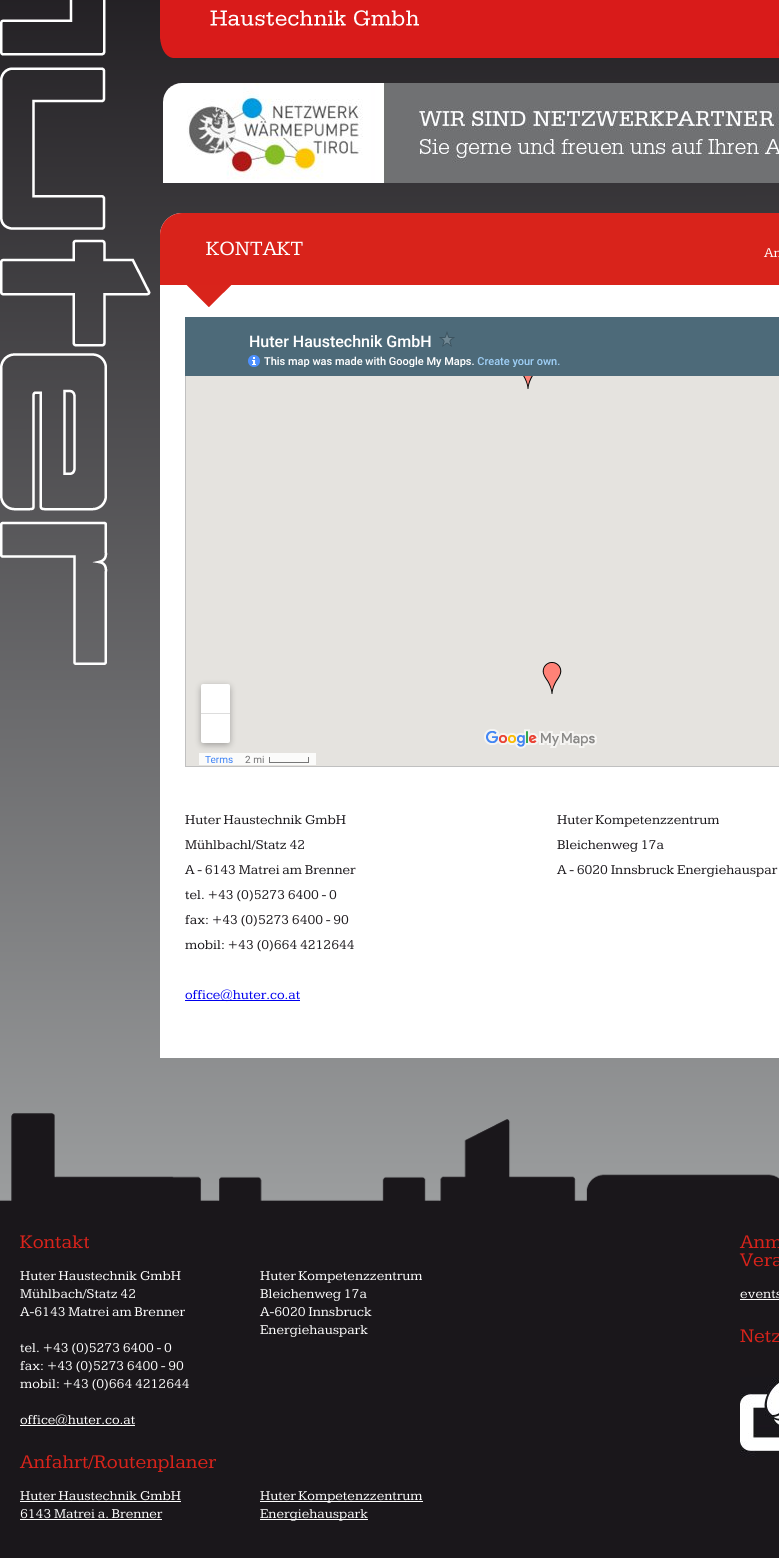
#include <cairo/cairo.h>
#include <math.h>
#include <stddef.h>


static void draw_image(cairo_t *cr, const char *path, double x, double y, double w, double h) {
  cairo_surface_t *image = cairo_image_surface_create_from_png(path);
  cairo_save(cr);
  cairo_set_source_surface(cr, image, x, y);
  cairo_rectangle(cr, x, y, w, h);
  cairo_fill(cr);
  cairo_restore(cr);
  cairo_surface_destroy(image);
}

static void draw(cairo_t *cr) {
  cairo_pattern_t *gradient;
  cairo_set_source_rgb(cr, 1, 1, 1);
  cairo_paint(cr);
  gradient = cairo_pattern_create_linear(389, -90, 390, 1208);
  cairo_pattern_add_color_stop_rgba(gradient, 0, 27 / 255.0, 24 / 255.0, 28 / 255.0, 1);
  cairo_pattern_add_color_stop_rgba(gradient, 1, 156 / 255.0, 158 / 255.0, 159 / 255.0, 1);
  cairo_set_source(cr, gradient);
  cairo_pattern_destroy(gradient);
  cairo_rectangle(cr, 0, 0, 779, 1201);
  cairo_fill(cr);
  draw_image(cr, "images/1.png", 0, 0, 151, 665);
  draw_image(cr, "images/2.png", 160, 0, 619, 58);
  draw_image(cr, "images/3.png", 163, 83, 616, 100);
  cairo_set_source_rgb(cr, 1, 1, 1);
  cairo_new_path(cr);
  cairo_move_to(cr, 182, 213);
  cairo_line_to(cr, 779, 213);
  cairo_line_to(cr, 779, 1058);
  cairo_line_to(cr, 160, 1058);
  cairo_line_to(cr, 160, 235);
  cairo_curve_to(cr, 160, 223, 170, 213, 182, 213);
  cairo_close_path(cr);
  cairo_fill(cr);
  cairo_set_source_rgb(cr, 217 / 255.0, 35 / 255.0, 27 / 255.0);
  cairo_new_path(cr);
  cairo_move_to(cr, 182, 213);
  cairo_line_to(cr, 779, 213);
  cairo_line_to(cr, 779, 285);
  cairo_line_to(cr, 160, 285);
  cairo_line_to(cr, 160, 235);
  cairo_curve_to(cr, 160, 223, 170, 213, 182, 213);
  cairo_close_path(cr);
  cairo_fill(cr);
  draw_image(cr, "images/4.png", 186, 285, 46, 22);
  draw_image(cr, "images/5.png", 185, 317, 594, 450);
  cairo_set_source_rgb(cr, 0, 0, 238 / 255.0);
  cairo_rectangle(cr, 185, 1000, 115, 1);
  cairo_fill(cr);
  draw_image(cr, "images/6.png", 0, 1113, 779, 100);
  cairo_set_source_rgb(cr, 26 / 255.0, 23 / 255.0, 27 / 255.0);
  cairo_rectangle(cr, 0, 1213, 779, 345);
  cairo_fill(cr);
  cairo_set_source_rgb(cr, 1, 1, 1);
  cairo_rectangle(cr, 20, 1425, 115, 1);
  cairo_fill(cr);
  cairo_rectangle(cr, 20, 1501, 161, 1);
  cairo_fill(cr);
  cairo_rectangle(cr, 20, 1519, 142, 1);
  cairo_fill(cr);
  cairo_rectangle(cr, 260, 1501, 163, 1);
  cairo_fill(cr);
  cairo_rectangle(cr, 260, 1519, 108, 1);
  cairo_fill(cr);
  cairo_rectangle(cr, 740, 1299, 39, 1);
  cairo_fill(cr);
  draw_image(cr, "images/7.png", 740, 1377, 39, 80);
  cairo_select_font_face(cr, "Kameron", CAIRO_FONT_SLANT_NORMAL, CAIRO_FONT_WEIGHT_NORMAL);
  cairo_set_font_size(cr, 21);
  cairo_move_to(cr, 206, 255);
  cairo_show_text(cr, "KONTAKT");
  cairo_set_font_size(cr, 14);
  cairo_move_to(cr, 764, 257);
  cairo_show_text(cr, "An");
  cairo_set_source_rgb(cr, 26 / 255.0, 23 / 255.0, 27 / 255.0);
  cairo_move_to(cr, 185, 824);
  cairo_show_text(cr, "Huter Haustechnik GmbH");
  cairo_move_to(cr, 185, 849);
  cairo_show_text(cr, "Mühlbachl/Statz 42");
  cairo_move_to(cr, 185, 874);
  cairo_show_text(cr, "A - 6143 Matrei am Brenner");
  cairo_move_to(cr, 185, 899);
  cairo_show_text(cr, "tel. +43 (0)5273 6400 - 0");
  cairo_move_to(cr, 185, 924);
  cairo_show_text(cr, "fax: +43 (0)5273 6400 - 90");
  cairo_move_to(cr, 185, 949);
  cairo_show_text(cr, "mobil: +43 (0)664 4212644");
  cairo_set_source_rgb(cr, 0, 0, 238 / 255.0);
  cairo_move_to(cr, 185, 999);
  cairo_show_text(cr, "office@huter.co.at");
  cairo_set_source_rgb(cr, 26 / 255.0, 23 / 255.0, 27 / 255.0);
  cairo_move_to(cr, 557, 824);
  cairo_show_text(cr, "Huter Kompetenzzentrum");
  cairo_move_to(cr, 557, 849);
  cairo_show_text(cr, "Bleichenweg 17a");
  cairo_move_to(cr, 557, 874);
  cairo_show_text(cr, "A - 6020 Innsbruck Energiehauspar");
  cairo_set_font_size(cr, 20);
  cairo_set_source_rgb(cr, 217 / 255.0, 35 / 255.0, 27 / 255.0);
  cairo_move_to(cr, 20, 1248);
  cairo_show_text(cr, "Kontakt");
  cairo_set_font_size(cr, 14);
  cairo_set_source_rgb(cr, 1, 1, 1);
  cairo_move_to(cr, 20, 1280);
  cairo_show_text(cr, "Huter Haustechnik GmbH");
  cairo_move_to(cr, 20, 1298);
  cairo_show_text(cr, "Mühlbach/Statz 42");
  cairo_move_to(cr, 20, 1316);
  cairo_show_text(cr, "A-6143 Matrei am Brenner");
  cairo_move_to(cr, 20, 1352);
  cairo_show_text(cr, "tel. +43 (0)5273 6400 - 0");
  cairo_move_to(cr, 20, 1370);
  cairo_show_text(cr, "fax: +43 (0)5273 6400 - 90");
  cairo_move_to(cr, 20, 1388);
  cairo_show_text(cr, "mobil: +43 (0)664 4212644");
  cairo_move_to(cr, 20, 1424);
  cairo_show_text(cr, "office@huter.co.at");
  cairo_move_to(cr, 260, 1280);
  cairo_show_text(cr, "Huter Kompetenzzentrum");
  cairo_move_to(cr, 260, 1298);
  cairo_show_text(cr, "Bleichenweg 17a");
  cairo_move_to(cr, 260, 1316);
  cairo_show_text(cr, "A-6020 Innsbruck");
  cairo_move_to(cr, 260, 1334);
  cairo_show_text(cr, "Energiehauspark");
  cairo_set_font_size(cr, 20);
  cairo_set_source_rgb(cr, 217 / 255.0, 35 / 255.0, 27 / 255.0);
  cairo_move_to(cr, 20, 1468);
  cairo_show_text(cr, "Anfahrt/Routenplaner");
  cairo_set_font_size(cr, 14);
  cairo_set_source_rgb(cr, 1, 1, 1);
  cairo_move_to(cr, 20, 1500);
  cairo_show_text(cr, "Huter Haustechnik GmbH");
  cairo_move_to(cr, 20, 1518);
  cairo_show_text(cr, "6143 Matrei a. Brenner");
  cairo_move_to(cr, 260, 1500);
  cairo_show_text(cr, "Huter Kompetenzzentrum");
  cairo_move_to(cr, 260, 1518);
  cairo_show_text(cr, "Energiehauspark");
  cairo_set_font_size(cr, 20);
  cairo_set_source_rgb(cr, 217 / 255.0, 35 / 255.0, 27 / 255.0);
  cairo_move_to(cr, 740, 1248);
  cairo_show_text(cr, "Anm");
  cairo_move_to(cr, 740, 1266);
  cairo_show_text(cr, "Vera");
  cairo_set_font_size(cr, 14);
  cairo_set_source_rgb(cr, 1, 1, 1);
  cairo_move_to(cr, 740, 1298);
  cairo_show_text(cr, "events");
  cairo_set_font_size(cr, 20);
  cairo_set_source_rgb(cr, 217 / 255.0, 35 / 255.0, 27 / 255.0);
  cairo_move_to(cr, 740, 1342);
  cairo_show_text(cr, "Netz");
}

int main(void) {
  cairo_surface_t *surface = cairo_image_surface_create(CAIRO_FORMAT_RGB24, 779, 1558);
  cairo_t *cr = cairo_create(surface);
  cairo_font_options_t *options = cairo_font_options_create();
  cairo_font_options_set_hint_metrics(options, CAIRO_HINT_METRICS_OFF);
  cairo_font_options_set_hint_style(options, CAIRO_HINT_STYLE_NONE);
  cairo_set_font_options(cr, options);
  cairo_set_miter_limit(cr, 4);
  draw(cr);
  cairo_surface_write_to_png(surface, "out.png");
  cairo_font_options_destroy(options);
  cairo_destroy(cr);
  cairo_surface_destroy(surface);
  return 0;
}
